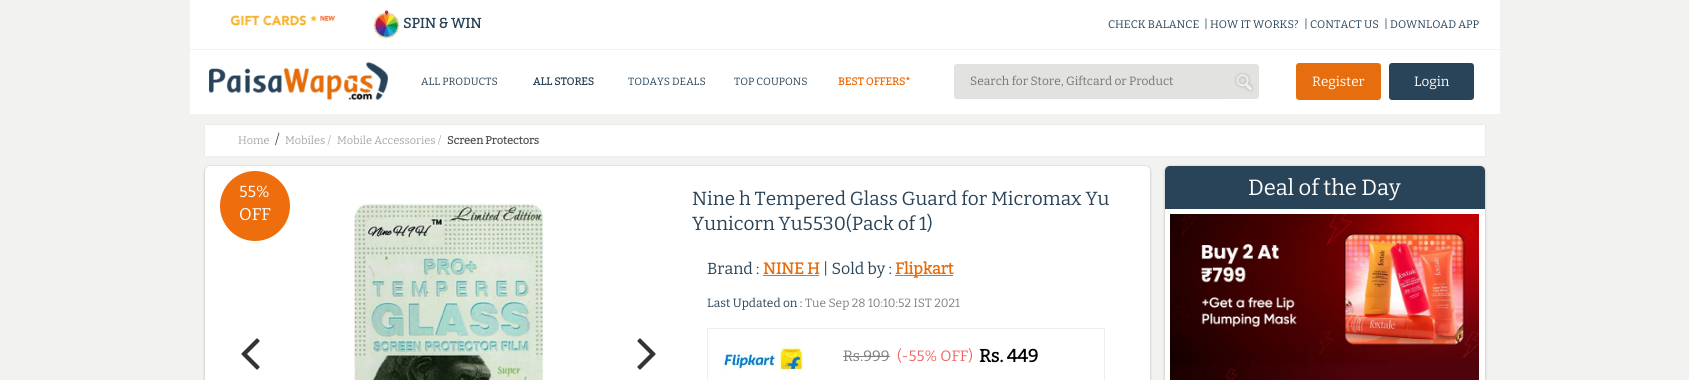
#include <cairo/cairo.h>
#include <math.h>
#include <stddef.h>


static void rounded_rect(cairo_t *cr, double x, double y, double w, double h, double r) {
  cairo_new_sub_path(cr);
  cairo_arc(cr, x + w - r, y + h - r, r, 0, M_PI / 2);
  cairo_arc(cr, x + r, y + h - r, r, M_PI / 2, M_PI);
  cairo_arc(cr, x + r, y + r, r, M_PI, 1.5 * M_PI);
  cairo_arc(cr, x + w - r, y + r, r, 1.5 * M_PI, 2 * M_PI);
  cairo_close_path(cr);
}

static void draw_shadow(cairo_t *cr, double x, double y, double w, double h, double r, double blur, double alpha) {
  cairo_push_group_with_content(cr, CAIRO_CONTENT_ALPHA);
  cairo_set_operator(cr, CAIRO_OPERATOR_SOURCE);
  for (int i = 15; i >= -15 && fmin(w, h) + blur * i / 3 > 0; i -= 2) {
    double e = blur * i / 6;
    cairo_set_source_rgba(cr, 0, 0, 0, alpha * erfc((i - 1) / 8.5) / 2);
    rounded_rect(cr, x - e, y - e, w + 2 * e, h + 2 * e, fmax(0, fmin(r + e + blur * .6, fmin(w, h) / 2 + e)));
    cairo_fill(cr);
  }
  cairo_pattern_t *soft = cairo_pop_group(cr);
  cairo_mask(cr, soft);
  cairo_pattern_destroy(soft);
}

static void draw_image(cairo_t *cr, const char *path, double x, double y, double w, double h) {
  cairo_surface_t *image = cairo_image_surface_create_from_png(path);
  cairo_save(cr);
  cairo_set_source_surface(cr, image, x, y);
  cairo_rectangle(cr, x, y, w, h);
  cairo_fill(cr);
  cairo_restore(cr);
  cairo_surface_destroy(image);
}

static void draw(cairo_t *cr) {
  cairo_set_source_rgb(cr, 242 / 255.0, 242 / 255.0, 241 / 255.0);
  cairo_paint(cr);
  cairo_set_source_rgb(cr, 1, 1, 1);
  cairo_rectangle(cr, 190, 0, 1310, 114);
  cairo_fill(cr);
  draw_image(cr, "images/1.png", 230, 15, 106, 11);
  draw_image(cr, "images/2.png", 372, 10, 28, 29);
  cairo_set_source_rgb(cr, 242 / 255.0, 242 / 255.0, 241 / 255.0);
  cairo_rectangle(cr, 190, 49, 1310, 1);
  cairo_fill(cr);
  draw_image(cr, "images/3.png", 209, 62, 179, 39);
  cairo_set_source_rgb(cr, 226 / 255.0, 226 / 255.0, 225 / 255.0);
  cairo_new_path(cr);
  cairo_move_to(cr, 957, 64.5);
  cairo_line_to(cr, 1228.5, 64.5);
  cairo_line_to(cr, 1228.5, 98.5);
  cairo_line_to(cr, 957, 98.5);
  cairo_curve_to(cr, 955.5, 98.5, 954.5, 97.5, 954.5, 96);
  cairo_line_to(cr, 954.5, 67);
  cairo_curve_to(cr, 954.5, 65.5, 955.5, 64.5, 957, 64.5);
  cairo_close_path(cr);
  cairo_fill_preserve(cr);
  cairo_set_source_rgb(cr, 224 / 255.0, 224 / 255.0, 224 / 255.0);
  cairo_set_line_width(cr, 1);
  cairo_stroke(cr);
  cairo_set_source_rgb(cr, 226 / 255.0, 226 / 255.0, 225 / 255.0);
  cairo_new_path(cr);
  cairo_move_to(cr, 1229, 64);
  cairo_line_to(cr, 1256, 64);
  cairo_curve_to(cr, 1257.5, 64, 1259, 65.5, 1259, 67);
  cairo_line_to(cr, 1259, 96);
  cairo_curve_to(cr, 1259, 97.5, 1257.5, 99, 1256, 99);
  cairo_line_to(cr, 1229, 99);
  cairo_close_path(cr);
  cairo_fill(cr);
  draw_image(cr, "images/4.png", 1234, 72, 20, 20);
  cairo_set_source_rgb(cr, 230 / 255.0, 110 / 255.0, 14 / 255.0);
  rounded_rect(cr, 1296, 63, 85, 37, 3);
  cairo_fill(cr);
  cairo_set_source_rgb(cr, 41 / 255.0, 68 / 255.0, 89 / 255.0);
  rounded_rect(cr, 1389, 63, 85, 37, 3);
  cairo_fill(cr);
  cairo_set_source_rgb(cr, 226 / 255.0, 226 / 255.0, 225 / 255.0);
  draw_shadow(cr, 205, 125, 1280, 31, 0, 1, 1);
  cairo_set_source_rgb(cr, 1, 1, 1);
  cairo_rectangle(cr, 205, 125, 1280, 31);
  cairo_fill(cr);
  rounded_rect(cr, 204.5, 165.5, 946, 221, 5.5);
  cairo_set_source_rgb(cr, 232 / 255.0, 232 / 255.0, 231 / 255.0);
  cairo_stroke(cr);
  cairo_set_source_rgb(cr, 0, 0, 0);
  draw_shadow(cr, 205, 167, 945, 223, 5, 1.5, 0.16);
  cairo_set_source_rgb(cr, 1, 1, 1);
  rounded_rect(cr, 205, 166, 945, 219, 5);
  cairo_fill(cr);
  cairo_set_source_rgb(cr, 238 / 255.0, 110 / 255.0, 14 / 255.0);
  cairo_arc(cr, 255, 206, 35, 0, 2 * M_PI);
  cairo_fill(cr);
  cairo_set_source_rgb(cr, 230 / 255.0, 110 / 255.0, 14 / 255.0);
  cairo_rectangle(cr, 763, 275, 56, 1);
  cairo_fill(cr);
  cairo_rectangle(cr, 895, 275, 58, 1);
  cairo_fill(cr);
  cairo_rectangle(cr, 707.5, 328.5, 397, 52);
  cairo_set_source_rgb(cr, 238 / 255.0, 238 / 255.0, 238 / 255.0);
  cairo_stroke(cr);
  draw_image(cr, "images/5.png", 723, 344, 80, 27);
  cairo_set_source_rgb(cr, 128 / 255.0, 128 / 255.0, 128 / 255.0);
  cairo_rectangle(cr, 843, 356, 47, 1);
  cairo_fill(cr);
  draw_image(cr, "images/6.png", 241, 338, 19, 32);
  draw_image(cr, "images/7.png", 353, 203, 191, 177);
  draw_image(cr, "images/8.png", 637, 338, 19, 32);
  rounded_rect(cr, 1164.5, 165.5, 321, 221, 5.5);
  cairo_set_source_rgb(cr, 232 / 255.0, 232 / 255.0, 231 / 255.0);
  cairo_stroke(cr);
  cairo_set_source_rgb(cr, 0, 0, 0);
  draw_shadow(cr, 1165, 167, 320, 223, 5, 1.5, 0.16);
  cairo_set_source_rgb(cr, 1, 1, 1);
  rounded_rect(cr, 1165, 166, 320, 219, 5);
  cairo_fill(cr);
  cairo_set_source_rgb(cr, 41 / 255.0, 68 / 255.0, 89 / 255.0);
  cairo_new_path(cr);
  cairo_move_to(cr, 1170, 166);
  cairo_line_to(cr, 1480, 166);
  cairo_curve_to(cr, 1483, 166, 1485, 168, 1485, 171);
  cairo_line_to(cr, 1485, 209);
  cairo_line_to(cr, 1165, 209);
  cairo_line_to(cr, 1165, 171);
  cairo_curve_to(cr, 1165, 168, 1167, 166, 1170, 166);
  cairo_close_path(cr);
  cairo_fill(cr);
  draw_image(cr, "images/9.png", 1170, 214, 309, 166);
  cairo_select_font_face(cr, "Bitter", CAIRO_FONT_SLANT_NORMAL, CAIRO_FONT_WEIGHT_BOLD);
  cairo_set_font_size(cr, 14);
  cairo_move_to(cr, 403, 28);
  cairo_show_text(cr, "SPIN & WIN");
  cairo_select_font_face(cr, "Bitter Thin", CAIRO_FONT_SLANT_NORMAL, CAIRO_FONT_WEIGHT_NORMAL);
  cairo_set_font_size(cr, 11);
  cairo_move_to(cr, 1108, 28);
  cairo_show_text(cr, "CHECK BALANCE");
  cairo_set_font_size(cr, 12);
  cairo_move_to(cr, 1204, 28);
  cairo_show_text(cr, "|");
  cairo_set_font_size(cr, 11);
  cairo_move_to(cr, 1210, 28);
  cairo_show_text(cr, "HOW IT WORKS?");
  cairo_set_font_size(cr, 12);
  cairo_move_to(cr, 1304, 28);
  cairo_show_text(cr, "|");
  cairo_set_font_size(cr, 11);
  cairo_move_to(cr, 1310, 28);
  cairo_show_text(cr, "CONTACT US");
  cairo_set_font_size(cr, 12);
  cairo_move_to(cr, 1384, 28);
  cairo_show_text(cr, "|");
  cairo_set_font_size(cr, 11);
  cairo_move_to(cr, 1390, 28);
  cairo_show_text(cr, "DOWNLOAD APP");
  cairo_set_font_size(cr, 10.5);
  cairo_move_to(cr, 421, 85);
  cairo_show_text(cr, "ALL PRODUCTS");
  cairo_select_font_face(cr, "Bitter", CAIRO_FONT_SLANT_NORMAL, CAIRO_FONT_WEIGHT_BOLD);
  cairo_move_to(cr, 533, 85);
  cairo_show_text(cr, "ALL STORES");
  cairo_select_font_face(cr, "Bitter Thin", CAIRO_FONT_SLANT_NORMAL, CAIRO_FONT_WEIGHT_NORMAL);
  cairo_move_to(cr, 628, 85);
  cairo_show_text(cr, "TODAYS DEALS");
  cairo_move_to(cr, 734, 85);
  cairo_show_text(cr, "TOP COUPONS");
  cairo_select_font_face(cr, "Bitter", CAIRO_FONT_SLANT_NORMAL, CAIRO_FONT_WEIGHT_BOLD);
  cairo_set_source_rgb(cr, 238 / 255.0, 110 / 255.0, 14 / 255.0);
  cairo_move_to(cr, 838, 85);
  cairo_show_text(cr, "BEST OFFERS*");
  cairo_select_font_face(cr, "Bitter Thin", CAIRO_FONT_SLANT_NORMAL, CAIRO_FONT_WEIGHT_NORMAL);
  cairo_set_font_size(cr, 12);
  cairo_set_source_rgb(cr, 117 / 255.0, 117 / 255.0, 117 / 255.0);
  cairo_move_to(cr, 970, 85);
  cairo_show_text(cr, "Search for Store, Giftcard or Product");
  cairo_set_font_size(cr, 13.5);
  cairo_set_source_rgb(cr, 1, 1, 1);
  cairo_move_to(cr, 1312, 86);
  cairo_show_text(cr, "Register");
  cairo_move_to(cr, 1414, 86);
  cairo_show_text(cr, "Login");
  cairo_set_font_size(cr, 11);
  cairo_set_source_rgb(cr, 167 / 255.0, 167 / 255.0, 167 / 255.0);
  cairo_move_to(cr, 238, 144);
  cairo_show_text(cr, "Home");
  cairo_set_font_size(cr, 14);
  cairo_set_source_rgb(cr, 41 / 255.0, 68 / 255.0, 89 / 255.0);
  cairo_move_to(cr, 275, 144);
  cairo_show_text(cr, "/");
  cairo_set_font_size(cr, 11);
  cairo_set_source_rgb(cr, 167 / 255.0, 167 / 255.0, 167 / 255.0);
  cairo_move_to(cr, 285, 144);
  cairo_show_text(cr, "Mobiles /");
  cairo_move_to(cr, 337, 144);
  cairo_show_text(cr, "Mobile Accessories /");
  cairo_select_font_face(cr, "Bitter", CAIRO_FONT_SLANT_NORMAL, CAIRO_FONT_WEIGHT_BOLD);
  cairo_set_source_rgb(cr, 85 / 255.0, 85 / 255.0, 85 / 255.0);
  cairo_move_to(cr, 447, 144);
  cairo_show_text(cr, "Screen Protectors");
  cairo_select_font_face(cr, "Bitter Thin", CAIRO_FONT_SLANT_NORMAL, CAIRO_FONT_WEIGHT_NORMAL);
  cairo_set_font_size(cr, 16);
  cairo_set_source_rgb(cr, 1, 1, 1);
  cairo_move_to(cr, 239, 197);
  cairo_show_text(cr, "55%");
  cairo_set_font_size(cr, 17);
  cairo_move_to(cr, 239, 220);
  cairo_show_text(cr, "OFF");
  cairo_set_font_size(cr, 19);
  cairo_set_source_rgb(cr, 41 / 255.0, 68 / 255.0, 89 / 255.0);
  cairo_move_to(cr, 692, 205);
  cairo_show_text(cr, "Nine h Tempered Glass Guard for Micromax Yu");
  cairo_move_to(cr, 692, 230);
  cairo_show_text(cr, "Yunicorn Yu5530(Pack of 1)");
  cairo_set_font_size(cr, 16);
  cairo_move_to(cr, 707, 274);
  cairo_show_text(cr, "Brand :");
  cairo_select_font_face(cr, "Bitter", CAIRO_FONT_SLANT_NORMAL, CAIRO_FONT_WEIGHT_BOLD);
  cairo_set_source_rgb(cr, 230 / 255.0, 110 / 255.0, 14 / 255.0);
  cairo_move_to(cr, 763, 274);
  cairo_show_text(cr, "NINE H");
  cairo_select_font_face(cr, "Bitter Thin", CAIRO_FONT_SLANT_NORMAL, CAIRO_FONT_WEIGHT_NORMAL);
  cairo_set_source_rgb(cr, 41 / 255.0, 68 / 255.0, 89 / 255.0);
  cairo_move_to(cr, 823, 274);
  cairo_show_text(cr, "| Sold by :");
  cairo_select_font_face(cr, "Bitter", CAIRO_FONT_SLANT_NORMAL, CAIRO_FONT_WEIGHT_BOLD);
  cairo_set_source_rgb(cr, 230 / 255.0, 110 / 255.0, 14 / 255.0);
  cairo_move_to(cr, 895, 274);
  cairo_show_text(cr, "Flipkart");
  cairo_select_font_face(cr, "Bitter Thin", CAIRO_FONT_SLANT_NORMAL, CAIRO_FONT_WEIGHT_NORMAL);
  cairo_set_font_size(cr, 12);
  cairo_set_source_rgb(cr, 41 / 255.0, 68 / 255.0, 89 / 255.0);
  cairo_move_to(cr, 707, 307);
  cairo_show_text(cr, "Last Updated on :");
  cairo_set_source_rgb(cr, 128 / 255.0, 128 / 255.0, 128 / 255.0);
  cairo_move_to(cr, 805, 307);
  cairo_show_text(cr, "Tue Sep 28 10:10:52 IST 2021");
  cairo_set_font_size(cr, 15);
  cairo_move_to(cr, 843, 361);
  cairo_show_text(cr, "Rs.999");
  cairo_set_source_rgb(cr, 241 / 255.0, 101 / 255.0, 101 / 255.0);
  cairo_move_to(cr, 897, 361);
  cairo_show_text(cr, "(-55% OFF)");
  cairo_select_font_face(cr, "Bitter", CAIRO_FONT_SLANT_NORMAL, CAIRO_FONT_WEIGHT_BOLD);
  cairo_set_font_size(cr, 18);
  cairo_set_source_rgb(cr, 0, 0, 0);
  cairo_move_to(cr, 979, 362);
  cairo_show_text(cr, "Rs. 449");
  cairo_select_font_face(cr, "Bitter Thin", CAIRO_FONT_SLANT_NORMAL, CAIRO_FONT_WEIGHT_NORMAL);
  cairo_set_font_size(cr, 22);
  cairo_set_source_rgb(cr, 1, 1, 1);
  cairo_move_to(cr, 1248, 195);
  cairo_show_text(cr, "Deal of the Day");
}

int main(void) {
  cairo_surface_t *surface = cairo_image_surface_create(CAIRO_FORMAT_RGB24, 1689, 380);
  cairo_t *cr = cairo_create(surface);
  cairo_font_options_t *options = cairo_font_options_create();
  cairo_font_options_set_hint_metrics(options, CAIRO_HINT_METRICS_OFF);
  cairo_font_options_set_hint_style(options, CAIRO_HINT_STYLE_NONE);
  cairo_set_font_options(cr, options);
  cairo_set_miter_limit(cr, 4);
  draw(cr);
  cairo_surface_write_to_png(surface, "out.png");
  cairo_font_options_destroy(options);
  cairo_destroy(cr);
  cairo_surface_destroy(surface);
  return 0;
}
